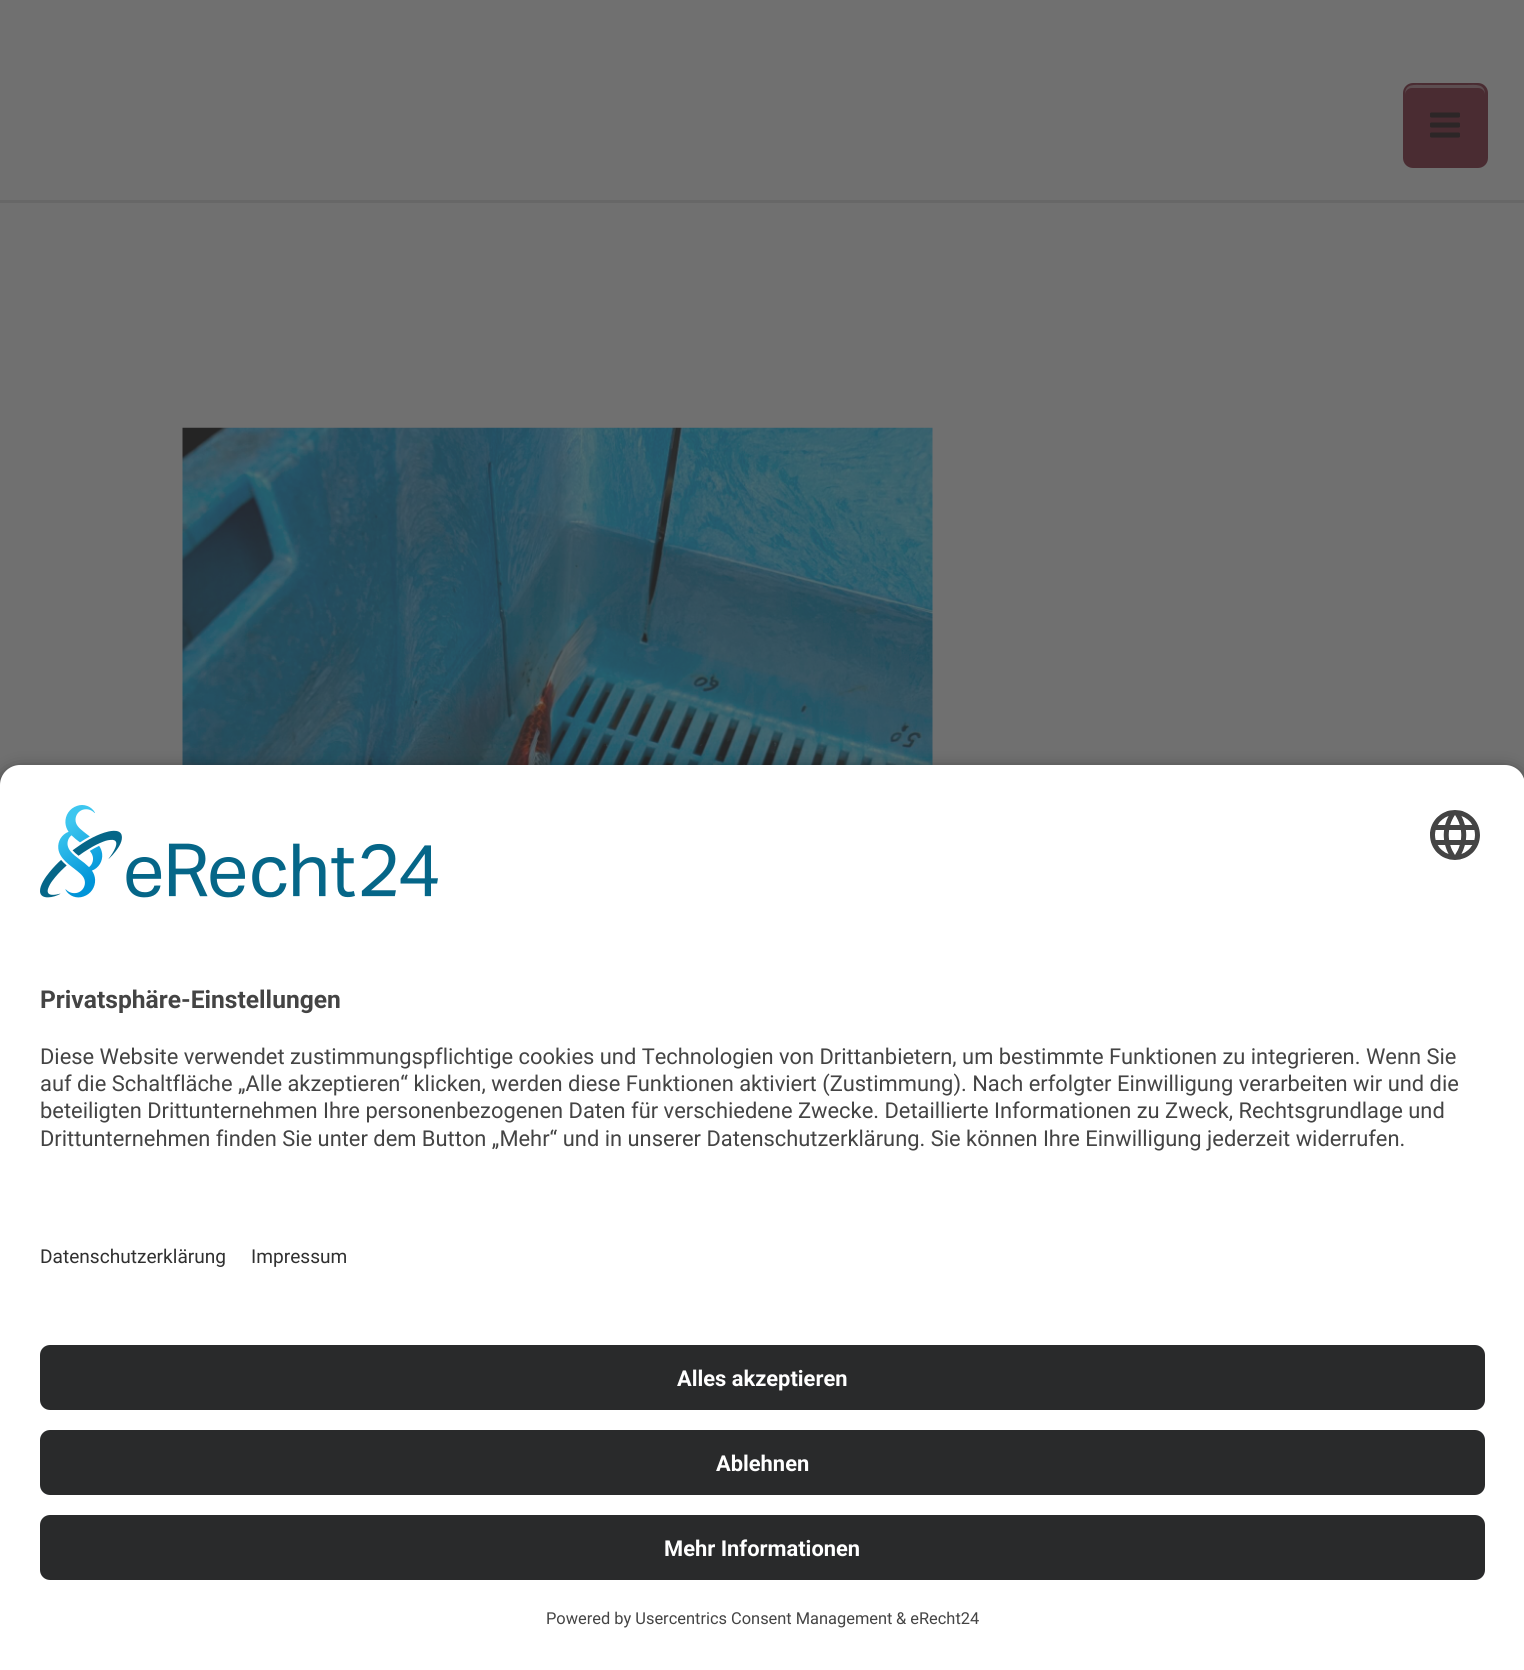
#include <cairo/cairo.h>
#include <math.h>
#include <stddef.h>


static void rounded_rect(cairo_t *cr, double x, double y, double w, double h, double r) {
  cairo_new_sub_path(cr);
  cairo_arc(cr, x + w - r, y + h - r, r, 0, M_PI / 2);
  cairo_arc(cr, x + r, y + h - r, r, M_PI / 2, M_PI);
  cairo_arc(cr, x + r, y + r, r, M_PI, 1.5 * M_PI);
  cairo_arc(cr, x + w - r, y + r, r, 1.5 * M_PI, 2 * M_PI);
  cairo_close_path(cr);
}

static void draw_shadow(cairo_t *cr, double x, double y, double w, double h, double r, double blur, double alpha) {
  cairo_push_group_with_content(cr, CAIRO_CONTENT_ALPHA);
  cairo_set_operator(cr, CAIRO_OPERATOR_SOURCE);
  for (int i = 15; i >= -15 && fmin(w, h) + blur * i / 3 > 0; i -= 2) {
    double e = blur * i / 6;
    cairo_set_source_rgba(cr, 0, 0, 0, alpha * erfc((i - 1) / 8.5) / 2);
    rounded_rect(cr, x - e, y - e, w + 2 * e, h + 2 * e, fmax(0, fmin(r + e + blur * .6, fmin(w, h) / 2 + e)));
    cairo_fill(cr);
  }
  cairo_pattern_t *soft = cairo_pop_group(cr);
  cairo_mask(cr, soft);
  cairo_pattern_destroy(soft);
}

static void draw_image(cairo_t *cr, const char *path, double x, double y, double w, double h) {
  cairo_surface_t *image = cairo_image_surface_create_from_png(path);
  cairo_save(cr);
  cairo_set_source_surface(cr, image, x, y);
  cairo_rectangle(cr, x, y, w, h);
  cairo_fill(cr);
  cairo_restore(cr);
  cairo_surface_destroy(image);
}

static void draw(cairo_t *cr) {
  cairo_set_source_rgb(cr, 112 / 255.0, 112 / 255.0, 112 / 255.0);
  cairo_paint(cr);
  cairo_set_source_rgb(cr, 103 / 255.0, 103 / 255.0, 103 / 255.0);
  cairo_rectangle(cr, 0, 200, 1524, 3);
  cairo_fill(cr);
  cairo_set_source_rgb(cr, 74 / 255.0, 44 / 255.0, 50 / 255.0);
  rounded_rect(cr, 1403, 83, 85, 85, 10);
  cairo_fill(cr);
  cairo_set_source_rgb(cr, 93 / 255.0, 78 / 255.0, 81 / 255.0);
  cairo_new_path(cr);
  cairo_move_to(cr, 1412, 88);
  cairo_line_to(cr, 1478, 88);
  cairo_curve_to(cr, 1482, 88, 1485, 91, 1485, 95);
  cairo_curve_to(cr, 1485, 83, 1476, 85, 1466, 85);
  cairo_line_to(cr, 1424, 85);
  cairo_curve_to(cr, 1414, 85, 1405, 83, 1405, 95);
  cairo_curve_to(cr, 1405, 91, 1408, 88, 1412, 88);
  cairo_close_path(cr);
  cairo_fill(cr);
  draw_image(cr, "images/1.png", 1430, 112, 30, 26);
  draw_image(cr, "images/2.png", 182, 427, 751, 338);
  cairo_set_source_rgb(cr, 0, 0, 0);
  draw_shadow(cr, 0, 773, 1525, 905, 20, 9, 0.8);
  cairo_set_source_rgb(cr, 1, 1, 1);
  cairo_new_path(cr);
  cairo_move_to(cr, 20, 765);
  cairo_line_to(cr, 1505, 765);
  cairo_curve_to(cr, 1516, 765, 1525, 774, 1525, 785);
  cairo_line_to(cr, 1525, 1203);
  cairo_line_to(cr, 0, 1203);
  cairo_line_to(cr, 0, 785);
  cairo_curve_to(cr, 0, 774, 9, 765, 20, 765);
  cairo_close_path(cr);
  cairo_fill(cr);
  draw_image(cr, "images/3.png", 40, 805, 398, 93);
  draw_image(cr, "images/4.png", 1430, 810, 50, 50);
  cairo_rectangle(cr, 0, 1203, 1524, 467);
  cairo_fill(cr);
  cairo_set_source_rgb(cr, 41 / 255.0, 42 / 255.0, 43 / 255.0);
  rounded_rect(cr, 40, 1345, 1445, 65, 10);
  cairo_fill(cr);
  rounded_rect(cr, 40, 1430, 1445, 65, 10);
  cairo_fill(cr);
  rounded_rect(cr, 40, 1515, 1445, 65, 10);
  cairo_fill(cr);
  cairo_select_font_face(cr, "Roboto", CAIRO_FONT_SLANT_NORMAL, CAIRO_FONT_WEIGHT_BOLD);
  cairo_set_font_size(cr, 24.6);
  cairo_set_source_rgb(cr, 68 / 255.0, 68 / 255.0, 68 / 255.0);
  cairo_move_to(cr, 40, 1008);
  cairo_show_text(cr, "Privatsphäre-Einstellungen");
  cairo_select_font_face(cr, "Roboto", CAIRO_FONT_SLANT_NORMAL, CAIRO_FONT_WEIGHT_NORMAL);
  cairo_set_font_size(cr, 21.88);
  cairo_move_to(cr, 40, 1064);
  cairo_show_text(cr, "Diese Website verwendet zustimmungspflichtige cookies und Technologien von Drittanbietern, um bestimmte Funktionen zu integrieren. Wenn Sie");
  cairo_move_to(cr, 40, 1091);
  cairo_show_text(cr, "auf die Schaltfläche „Alle akzeptieren“ klicken, werden diese Funktionen aktiviert (Zustimmung). Nach erfolgter Einwilligung verarbeiten wir und die");
  cairo_move_to(cr, 40, 1118);
  cairo_show_text(cr, "beteiligten Drittunternehmen Ihre personenbezogenen Daten für verschiedene Zwecke. Detaillierte Informationen zu Zweck, Rechtsgrundlage und");
  cairo_move_to(cr, 40, 1146);
  cairo_show_text(cr, "Drittunternehmen finden Sie unter dem Button „Mehr“ und in unserer Datenschutzerklärung. Sie können Ihre Einwilligung jederzeit widerrufen.");
  cairo_set_font_size(cr, 19.1);
  cairo_set_source_rgb(cr, 48 / 255.0, 48 / 255.0, 48 / 255.0);
  cairo_move_to(cr, 40, 1263);
  cairo_show_text(cr, "Datenschutzerklärung");
  cairo_move_to(cr, 251, 1263);
  cairo_show_text(cr, "Impressum");
  cairo_select_font_face(cr, "Roboto", CAIRO_FONT_SLANT_NORMAL, CAIRO_FONT_WEIGHT_BOLD);
  cairo_set_font_size(cr, 21.88);
  cairo_set_source_rgb(cr, 1, 1, 1);
  cairo_move_to(cr, 677, 1386);
  cairo_show_text(cr, "Alles akzeptieren");
  cairo_move_to(cr, 716, 1471);
  cairo_show_text(cr, "Ablehnen");
  cairo_move_to(cr, 664, 1556);
  cairo_show_text(cr, "Mehr Informationen");
  cairo_select_font_face(cr, "Roboto", CAIRO_FONT_SLANT_NORMAL, CAIRO_FONT_WEIGHT_NORMAL);
  cairo_set_font_size(cr, 16.4);
  cairo_set_source_rgb(cr, 68 / 255.0, 68 / 255.0, 68 / 255.0);
  cairo_move_to(cr, 546, 1624);
  cairo_show_text(cr, "Powered by Usercentrics Consent Management");
  cairo_move_to(cr, 896, 1624);
  cairo_show_text(cr, "& eRecht24");
}

int main(void) {
  cairo_surface_t *surface = cairo_image_surface_create(CAIRO_FORMAT_RGB24, 1524, 1670);
  cairo_t *cr = cairo_create(surface);
  cairo_font_options_t *options = cairo_font_options_create();
  cairo_font_options_set_hint_metrics(options, CAIRO_HINT_METRICS_OFF);
  cairo_font_options_set_hint_style(options, CAIRO_HINT_STYLE_NONE);
  cairo_set_font_options(cr, options);
  cairo_set_miter_limit(cr, 4);
  draw(cr);
  cairo_surface_write_to_png(surface, "out.png");
  cairo_font_options_destroy(options);
  cairo_destroy(cr);
  cairo_surface_destroy(surface);
  return 0;
}
